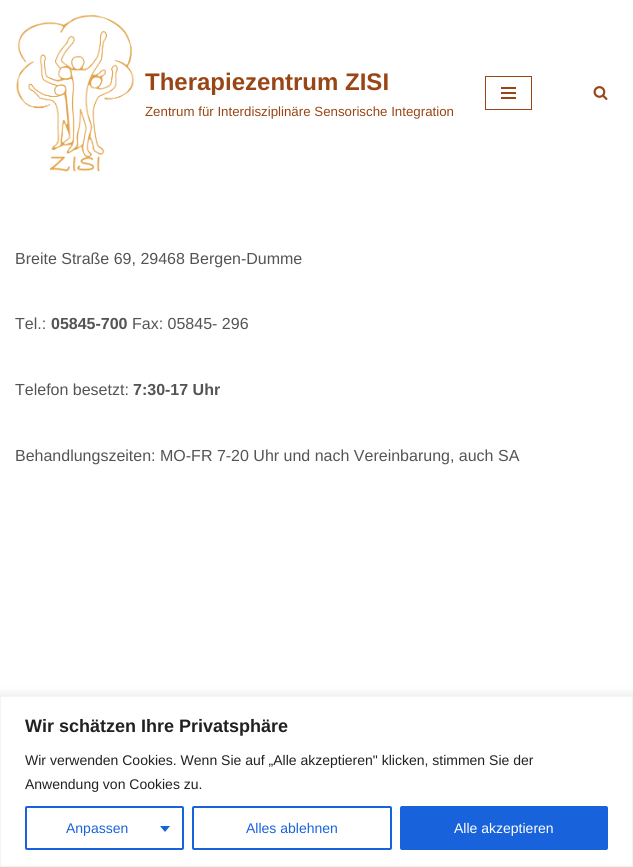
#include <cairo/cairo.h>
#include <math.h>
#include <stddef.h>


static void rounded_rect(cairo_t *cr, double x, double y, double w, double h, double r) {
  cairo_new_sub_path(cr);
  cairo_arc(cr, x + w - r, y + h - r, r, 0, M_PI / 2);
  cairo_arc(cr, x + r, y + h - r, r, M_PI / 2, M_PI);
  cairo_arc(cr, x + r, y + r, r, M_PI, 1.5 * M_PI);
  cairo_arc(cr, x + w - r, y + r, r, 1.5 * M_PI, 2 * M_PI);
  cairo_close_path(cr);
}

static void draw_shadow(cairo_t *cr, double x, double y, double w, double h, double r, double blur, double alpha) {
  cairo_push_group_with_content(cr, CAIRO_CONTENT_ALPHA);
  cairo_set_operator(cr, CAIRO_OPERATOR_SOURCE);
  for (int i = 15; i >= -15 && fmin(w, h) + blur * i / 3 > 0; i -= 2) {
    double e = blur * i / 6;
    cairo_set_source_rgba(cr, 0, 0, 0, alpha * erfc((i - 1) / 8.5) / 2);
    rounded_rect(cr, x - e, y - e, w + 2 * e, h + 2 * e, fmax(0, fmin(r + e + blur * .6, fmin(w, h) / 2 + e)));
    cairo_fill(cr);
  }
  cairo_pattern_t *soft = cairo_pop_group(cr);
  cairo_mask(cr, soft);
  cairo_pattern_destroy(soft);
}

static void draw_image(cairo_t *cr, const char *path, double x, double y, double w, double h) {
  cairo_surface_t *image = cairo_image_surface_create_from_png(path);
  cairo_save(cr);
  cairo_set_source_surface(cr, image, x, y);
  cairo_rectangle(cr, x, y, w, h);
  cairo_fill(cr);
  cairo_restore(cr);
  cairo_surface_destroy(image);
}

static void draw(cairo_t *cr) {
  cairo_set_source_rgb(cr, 1, 1, 1);
  cairo_paint(cr);
  draw_image(cr, "images/1.png", 16, 14, 118, 158);
  cairo_rectangle(cr, 485.5, 76.5, 46, 33);
  cairo_set_source_rgb(cr, 153 / 255.0, 69 / 255.0, 21 / 255.0);
  cairo_set_line_width(cr, 1);
  cairo_stroke(cr);
  cairo_rectangle(cr, 501, 87, 15, 2);
  cairo_fill(cr);
  cairo_rectangle(cr, 501, 92, 15, 2);
  cairo_fill(cr);
  cairo_rectangle(cr, 501, 97, 15, 2);
  cairo_fill(cr);
  draw_image(cr, "images/2.png", 593, 86, 15, 14);
  cairo_set_source_rgb(cr, 172 / 255.0, 171 / 255.0, 171 / 255.0);
  draw_shadow(cr, 0, 695, 633, 171, 0, 5, 0.3);
  cairo_set_source_rgb(cr, 1, 1, 1);
  cairo_rectangle(cr, 0.5, 696.5, 632, 170);
  cairo_fill_preserve(cr);
  cairo_set_source_rgb(cr, 244 / 255.0, 244 / 255.0, 244 / 255.0);
  cairo_stroke(cr);
  rounded_rect(cr, 26, 807, 157, 42, 1);
  cairo_set_source_rgb(cr, 24 / 255.0, 99 / 255.0, 220 / 255.0);
  cairo_set_line_width(cr, 2);
  cairo_stroke(cr);
  cairo_new_path(cr);
  cairo_move_to(cr, 160, 826);
  cairo_line_to(cr, 170, 826);
  cairo_line_to(cr, 165, 832);
  cairo_close_path(cr);
  cairo_fill(cr);
  rounded_rect(cr, 193, 807, 198, 42, 1);
  cairo_stroke(cr);
  rounded_rect(cr, 401, 807, 206, 42, 1);
  cairo_fill_preserve(cr);
  cairo_stroke(cr);
  cairo_select_font_face(cr, "Liberation Sans", CAIRO_FONT_SLANT_NORMAL, CAIRO_FONT_WEIGHT_BOLD);
  cairo_set_font_size(cr, 24);
  cairo_set_source_rgb(cr, 153 / 255.0, 69 / 255.0, 21 / 255.0);
  cairo_move_to(cr, 145, 90);
  cairo_show_text(cr, "Therapiezentrum ZISI");
  cairo_select_font_face(cr, "Liberation Sans", CAIRO_FONT_SLANT_NORMAL, CAIRO_FONT_WEIGHT_NORMAL);
  cairo_set_font_size(cr, 13.3);
  cairo_move_to(cr, 145, 116);
  cairo_show_text(cr, "Zentrum für Interdisziplinäre Sensorische Integration");
  cairo_set_font_size(cr, 16);
  cairo_set_source_rgb(cr, 84 / 255.0, 84 / 255.0, 84 / 255.0);
  cairo_move_to(cr, 15, 264);
  cairo_show_text(cr, "Breite Straße 69, 29468 Bergen-Dumme");
  cairo_move_to(cr, 15, 329);
  cairo_show_text(cr, "Tel.:");
  cairo_select_font_face(cr, "Liberation Sans", CAIRO_FONT_SLANT_NORMAL, CAIRO_FONT_WEIGHT_BOLD);
  cairo_move_to(cr, 51, 329);
  cairo_show_text(cr, "05845-700");
  cairo_select_font_face(cr, "Liberation Sans", CAIRO_FONT_SLANT_NORMAL, CAIRO_FONT_WEIGHT_NORMAL);
  cairo_move_to(cr, 132, 329);
  cairo_show_text(cr, "Fax: 05845- 296");
  cairo_move_to(cr, 15, 395);
  cairo_show_text(cr, "Telefon besetzt:");
  cairo_select_font_face(cr, "Liberation Sans", CAIRO_FONT_SLANT_NORMAL, CAIRO_FONT_WEIGHT_BOLD);
  cairo_move_to(cr, 133, 395);
  cairo_show_text(cr, "7:30-17 Uhr");
  cairo_select_font_face(cr, "Liberation Sans", CAIRO_FONT_SLANT_NORMAL, CAIRO_FONT_WEIGHT_NORMAL);
  cairo_move_to(cr, 15, 461);
  cairo_show_text(cr, "Behandlungszeiten: MO-FR 7-20 Uhr und nach Vereinbarung, auch SA");
  cairo_select_font_face(cr, "Liberation Sans", CAIRO_FONT_SLANT_NORMAL, CAIRO_FONT_WEIGHT_BOLD);
  cairo_set_font_size(cr, 18);
  cairo_set_source_rgb(cr, 33 / 255.0, 33 / 255.0, 33 / 255.0);
  cairo_move_to(cr, 25, 732);
  cairo_show_text(cr, "Wir schätzen Ihre Privatsphäre");
  cairo_select_font_face(cr, "Liberation Sans", CAIRO_FONT_SLANT_NORMAL, CAIRO_FONT_WEIGHT_NORMAL);
  cairo_set_font_size(cr, 14);
  cairo_move_to(cr, 25, 765);
  cairo_show_text(cr, "Wir verwenden Cookies. Wenn Sie auf „Alle akzeptieren\" klicken, stimmen Sie der");
  cairo_move_to(cr, 25, 789);
  cairo_show_text(cr, "Anwendung von Cookies zu.");
  cairo_set_source_rgb(cr, 24 / 255.0, 99 / 255.0, 220 / 255.0);
  cairo_move_to(cr, 66, 833);
  cairo_show_text(cr, "Anpassen");
  cairo_move_to(cr, 246, 833);
  cairo_show_text(cr, "Alles ablehnen");
  cairo_set_source_rgb(cr, 1, 1, 1);
  cairo_move_to(cr, 454, 833);
  cairo_show_text(cr, "Alle akzeptieren");
}

int main(void) {
  cairo_surface_t *surface = cairo_image_surface_create(CAIRO_FORMAT_RGB24, 633, 867);
  cairo_t *cr = cairo_create(surface);
  cairo_font_options_t *options = cairo_font_options_create();
  cairo_font_options_set_hint_metrics(options, CAIRO_HINT_METRICS_OFF);
  cairo_font_options_set_hint_style(options, CAIRO_HINT_STYLE_NONE);
  cairo_set_font_options(cr, options);
  cairo_set_miter_limit(cr, 4);
  draw(cr);
  cairo_surface_write_to_png(surface, "out.png");
  cairo_font_options_destroy(options);
  cairo_destroy(cr);
  cairo_surface_destroy(surface);
  return 0;
}
